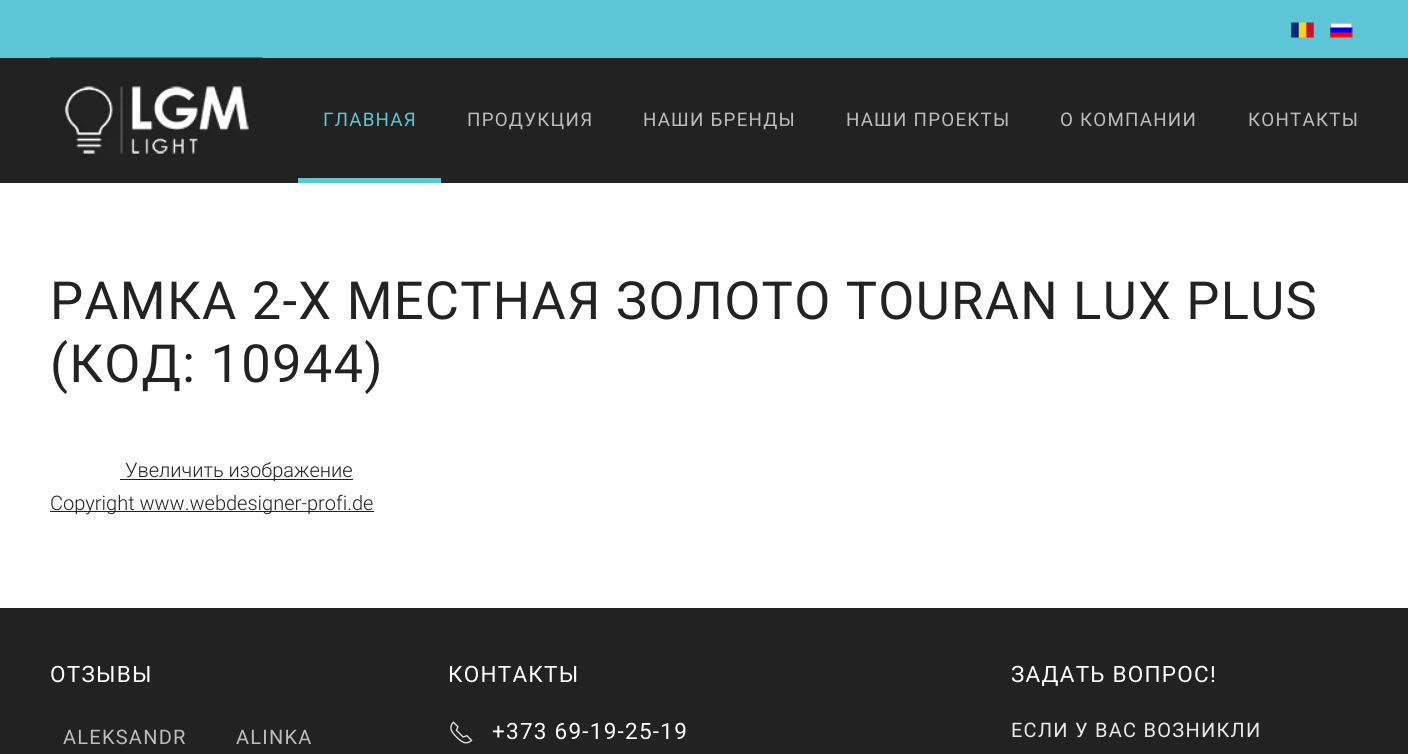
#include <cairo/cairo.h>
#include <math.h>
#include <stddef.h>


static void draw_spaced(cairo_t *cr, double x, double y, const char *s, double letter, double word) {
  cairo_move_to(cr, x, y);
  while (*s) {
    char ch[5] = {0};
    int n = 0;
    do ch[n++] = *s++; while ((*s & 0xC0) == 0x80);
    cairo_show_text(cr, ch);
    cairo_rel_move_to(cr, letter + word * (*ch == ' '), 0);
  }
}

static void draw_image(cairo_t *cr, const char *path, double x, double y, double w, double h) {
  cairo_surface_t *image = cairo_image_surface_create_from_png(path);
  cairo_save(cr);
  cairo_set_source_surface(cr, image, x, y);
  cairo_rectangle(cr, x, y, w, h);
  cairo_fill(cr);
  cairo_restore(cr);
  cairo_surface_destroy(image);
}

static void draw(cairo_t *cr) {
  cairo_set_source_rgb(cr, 1, 1, 1);
  cairo_paint(cr);
  cairo_set_source_rgb(cr, 92 / 255.0, 198 / 255.0, 214 / 255.0);
  cairo_rectangle(cr, 0, 0, 1408, 58);
  cairo_fill(cr);
  draw_image(cr, "images/1.png", 1291, 22, 23, 16);
  draw_image(cr, "images/2.png", 1330, 22, 23, 16);
  cairo_set_source_rgb(cr, 34 / 255.0, 34 / 255.0, 34 / 255.0);
  cairo_rectangle(cr, 0, 58, 1408, 125);
  cairo_fill(cr);
  draw_image(cr, "images/3.png", 50, 57, 213, 100);
  cairo_set_source_rgb(cr, 92 / 255.0, 198 / 255.0, 214 / 255.0);
  cairo_rectangle(cr, 298, 178, 143, 5);
  cairo_fill(cr);
  cairo_set_source_rgb(cr, 34 / 255.0, 34 / 255.0, 34 / 255.0);
  cairo_rectangle(cr, 120, 479, 233, 1);
  cairo_fill(cr);
  cairo_rectangle(cr, 50, 511, 324, 1);
  cairo_fill(cr);
  cairo_rectangle(cr, 0, 608, 1408, 146);
  cairo_fill(cr);
  draw_image(cr, "images/4.png", 450, 721, 23, 23);
  cairo_select_font_face(cr, "Roboto", CAIRO_FONT_SLANT_NORMAL, CAIRO_FONT_WEIGHT_NORMAL);
  cairo_set_font_size(cr, 18.75);
  cairo_set_source_rgb(cr, 92 / 255.0, 198 / 255.0, 214 / 255.0);
  draw_spaced(cr, 323, 126, "ГЛАВНАЯ", 1.25, 0);
  cairo_set_source_rgb(cr, 189 / 255.0, 189 / 255.0, 189 / 255.0);
  draw_spaced(cr, 467, 126, "ПРОДУКЦИЯ", 1.25, 0);
  draw_spaced(cr, 643, 126, "НАШИ БРЕНДЫ", 1.25, 0);
  draw_spaced(cr, 846, 126, "НАШИ ПРОЕКТЫ", 1.25, 0);
  draw_spaced(cr, 1060, 126, "О КОМПАНИИ", 1.25, 0);
  draw_spaced(cr, 1248, 126, "КОНТАКТЫ", 1.25, 0);
  cairo_set_font_size(cr, 52.5);
  cairo_set_source_rgb(cr, 34 / 255.0, 34 / 255.0, 34 / 255.0);
  draw_spaced(cr, 50, 319, "РАМКА 2-Х МЕСТНАЯ ЗОЛОТО TOURAN LUX PLUS", 1.25, 0);
  draw_spaced(cr, 50, 382, "(КОД: 10944)", 1.25, 0);
  cairo_select_font_face(cr, "Roboto Light", CAIRO_FONT_SLANT_NORMAL, CAIRO_FONT_WEIGHT_NORMAL);
  cairo_set_font_size(cr, 20);
  cairo_move_to(cr, 125, 477);
  cairo_show_text(cr, "Увеличить изображение");
  cairo_move_to(cr, 50, 510);
  cairo_show_text(cr, "Copyright www.webdesigner-profi.de");
  cairo_select_font_face(cr, "Roboto", CAIRO_FONT_SLANT_NORMAL, CAIRO_FONT_WEIGHT_NORMAL);
  cairo_set_font_size(cr, 22.5);
  cairo_set_source_rgb(cr, 1, 1, 1);
  draw_spaced(cr, 50, 682, "ОТЗЫВЫ", 1.25, 0);
  cairo_set_font_size(cr, 20);
  cairo_set_source_rgb(cr, 189 / 255.0, 189 / 255.0, 189 / 255.0);
  draw_spaced(cr, 63, 744, "ALEKSANDR", 1.25, 0);
  draw_spaced(cr, 236, 744, "ALINKA", 1.25, 0);
  cairo_set_font_size(cr, 22.5);
  cairo_set_source_rgb(cr, 1, 1, 1);
  draw_spaced(cr, 448, 682, "КОНТАКТЫ", 1.25, 0);
  draw_spaced(cr, 492, 739, "+373 69-19-25-19", 1.25, 0);
  draw_spaced(cr, 1011, 682, "ЗАДАТЬ ВОПРОС!", 1.25, 0);
  cairo_set_font_size(cr, 20);
  cairo_set_source_rgb(cr, 233 / 255.0, 233 / 255.0, 233 / 255.0);
  draw_spaced(cr, 1011, 737, "ЕСЛИ У ВАС ВОЗНИКЛИ", 1.25, 0);
}

int main(void) {
  cairo_surface_t *surface = cairo_image_surface_create(CAIRO_FORMAT_RGB24, 1408, 754);
  cairo_t *cr = cairo_create(surface);
  cairo_font_options_t *options = cairo_font_options_create();
  cairo_font_options_set_hint_metrics(options, CAIRO_HINT_METRICS_OFF);
  cairo_font_options_set_hint_style(options, CAIRO_HINT_STYLE_NONE);
  cairo_set_font_options(cr, options);
  cairo_set_miter_limit(cr, 4);
  draw(cr);
  cairo_surface_write_to_png(surface, "out.png");
  cairo_font_options_destroy(options);
  cairo_destroy(cr);
  cairo_surface_destroy(surface);
  return 0;
}
